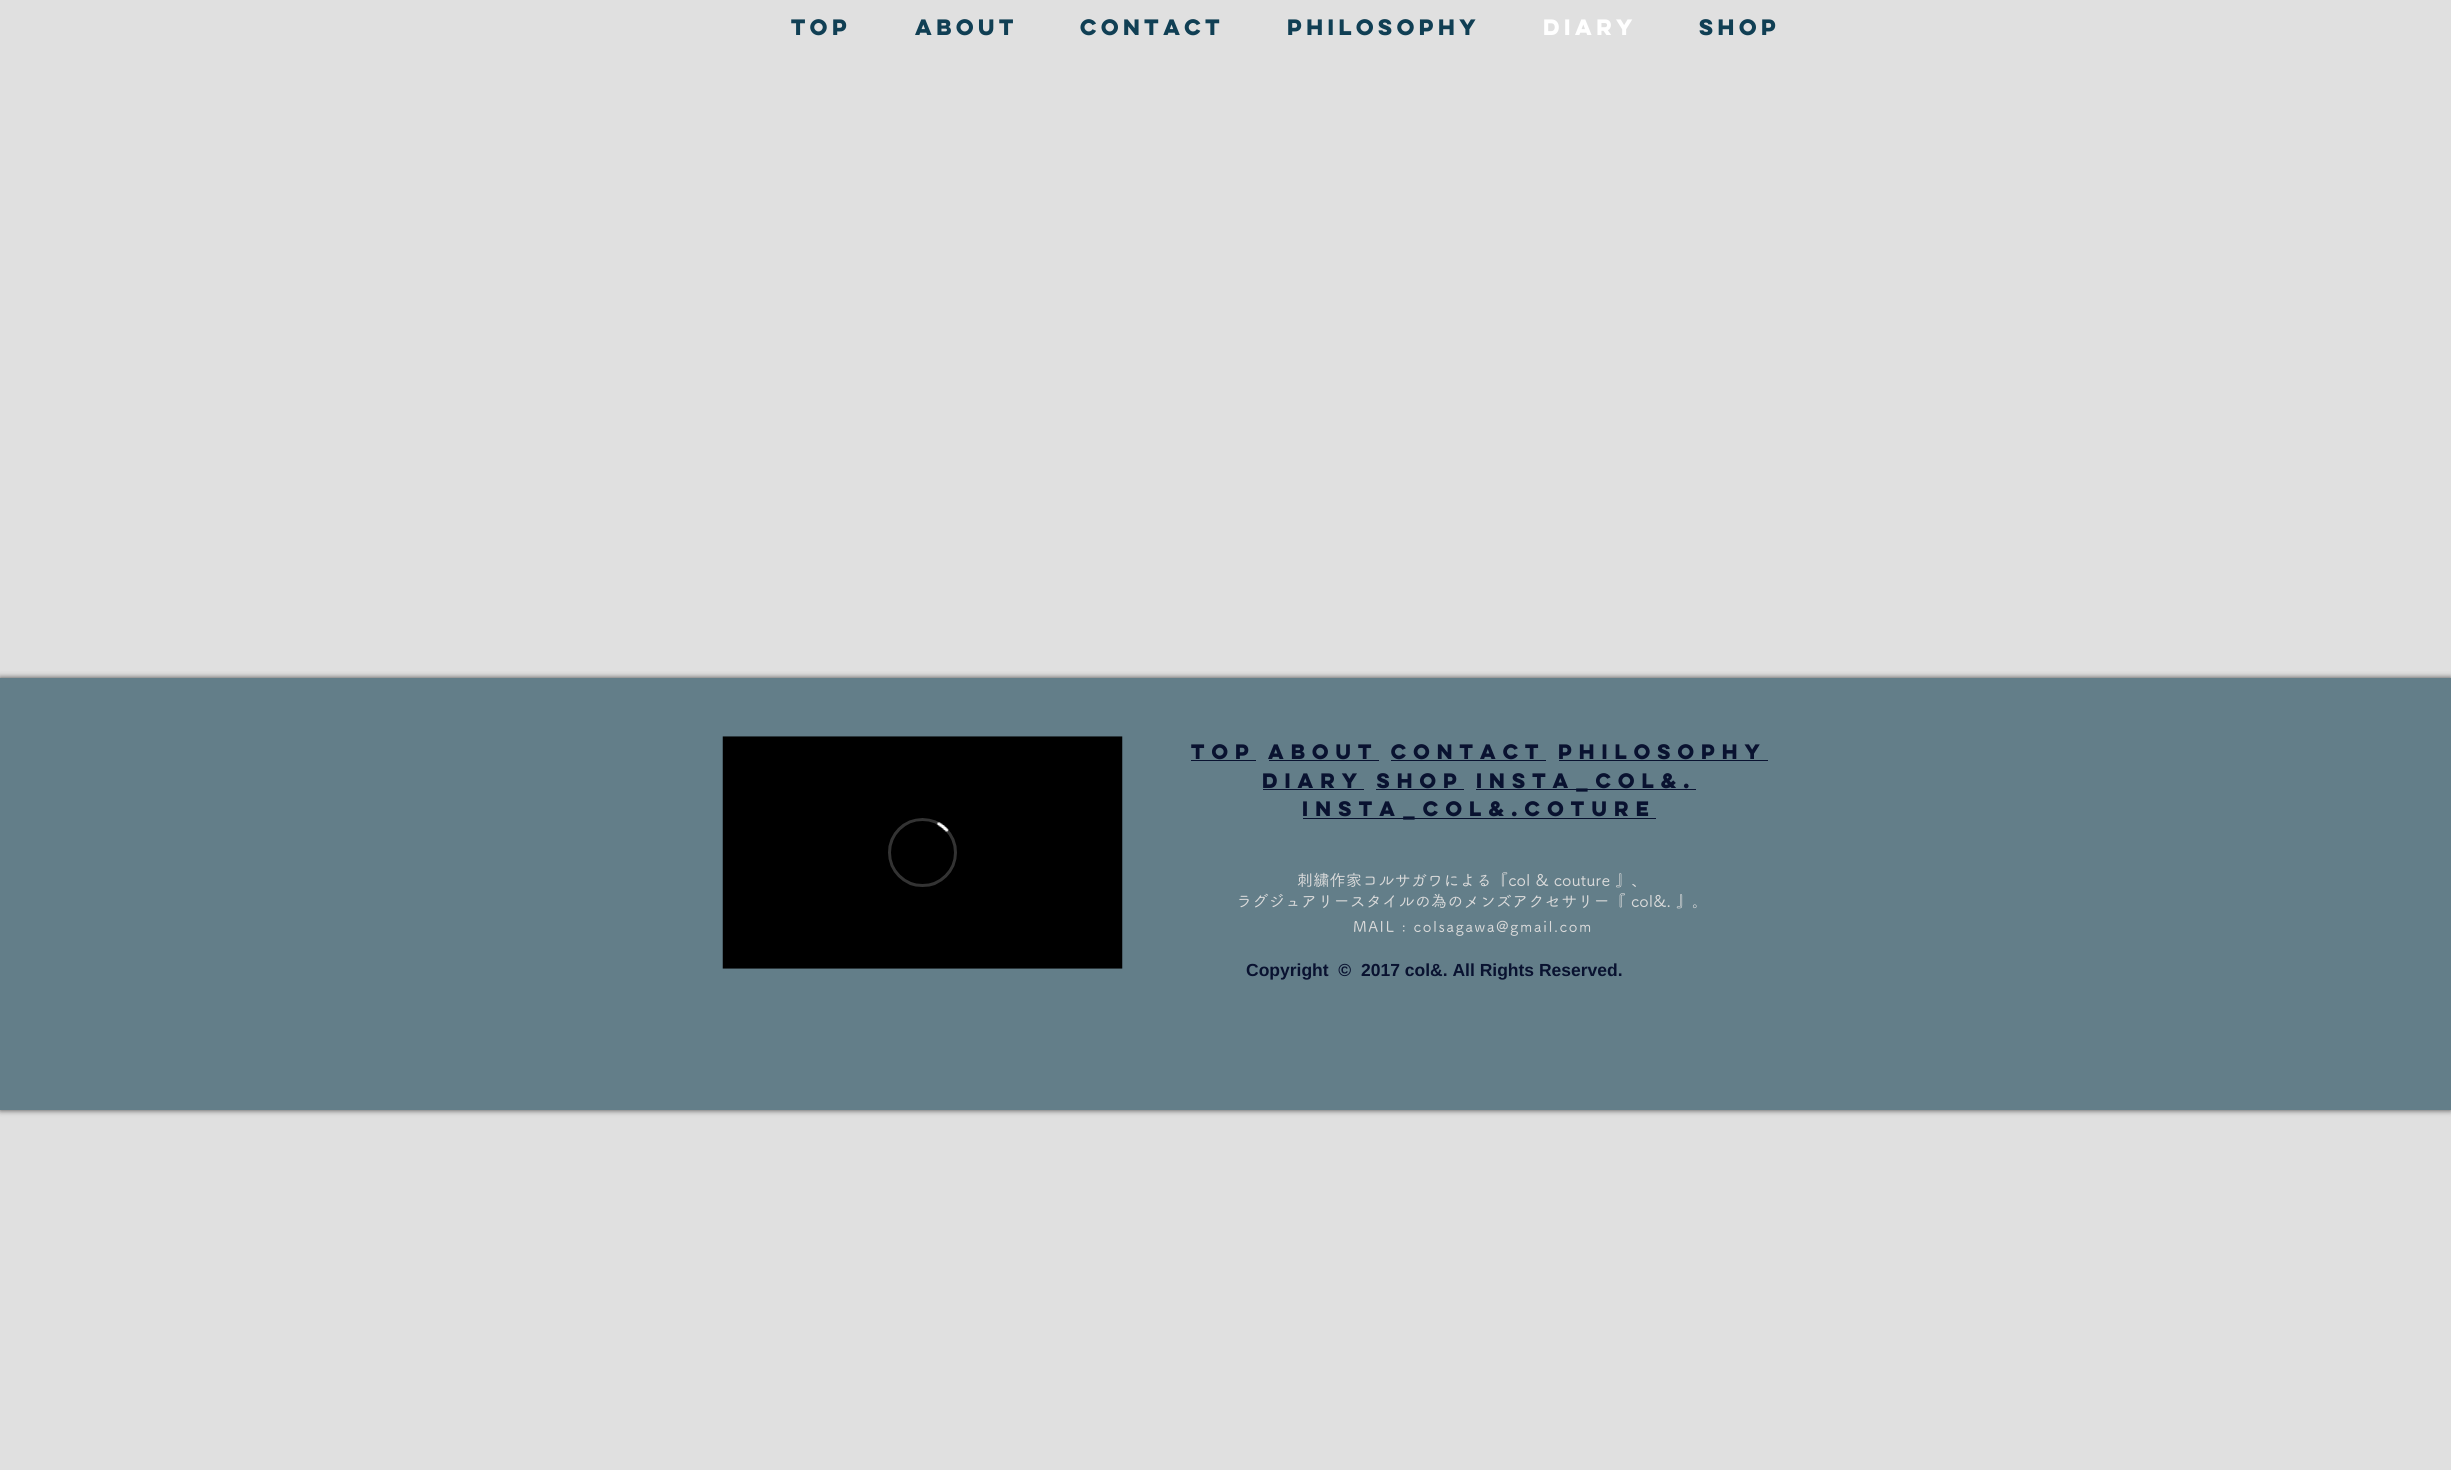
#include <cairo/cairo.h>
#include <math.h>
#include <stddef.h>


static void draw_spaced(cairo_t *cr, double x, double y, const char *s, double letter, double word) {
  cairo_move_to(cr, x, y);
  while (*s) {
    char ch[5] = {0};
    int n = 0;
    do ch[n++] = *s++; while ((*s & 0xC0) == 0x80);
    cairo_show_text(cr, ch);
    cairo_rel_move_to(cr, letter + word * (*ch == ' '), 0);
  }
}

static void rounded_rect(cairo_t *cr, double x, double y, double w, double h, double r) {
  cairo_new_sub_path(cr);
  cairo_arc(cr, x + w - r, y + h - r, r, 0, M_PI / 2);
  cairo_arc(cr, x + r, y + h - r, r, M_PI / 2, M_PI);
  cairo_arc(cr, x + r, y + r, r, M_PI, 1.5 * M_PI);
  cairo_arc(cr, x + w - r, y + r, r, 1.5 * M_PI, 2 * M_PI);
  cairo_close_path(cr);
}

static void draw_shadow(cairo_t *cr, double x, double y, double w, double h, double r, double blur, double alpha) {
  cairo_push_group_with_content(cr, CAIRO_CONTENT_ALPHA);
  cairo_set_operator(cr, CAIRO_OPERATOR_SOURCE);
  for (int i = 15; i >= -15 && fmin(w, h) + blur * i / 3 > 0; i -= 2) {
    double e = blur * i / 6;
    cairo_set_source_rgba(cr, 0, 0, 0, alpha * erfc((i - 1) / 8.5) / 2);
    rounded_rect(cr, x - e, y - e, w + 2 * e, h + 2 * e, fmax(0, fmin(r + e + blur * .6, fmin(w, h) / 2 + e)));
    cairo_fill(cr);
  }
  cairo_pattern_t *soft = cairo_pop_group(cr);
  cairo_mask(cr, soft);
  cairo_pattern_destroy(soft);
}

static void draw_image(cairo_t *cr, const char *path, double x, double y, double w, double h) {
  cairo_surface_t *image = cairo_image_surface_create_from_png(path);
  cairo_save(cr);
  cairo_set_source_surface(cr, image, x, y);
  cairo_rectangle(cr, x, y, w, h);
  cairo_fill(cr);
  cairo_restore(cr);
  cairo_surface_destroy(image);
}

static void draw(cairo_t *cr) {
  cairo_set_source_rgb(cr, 224 / 255.0, 224 / 255.0, 224 / 255.0);
  cairo_paint(cr);
  cairo_set_source_rgb(cr, 0, 0, 0);
  draw_shadow(cr, 0, 678, 2451, 432, 0, 3, 0.7);
  cairo_set_source_rgb(cr, 99 / 255.0, 126 / 255.0, 137 / 255.0);
  cairo_rectangle(cr, 0, 678, 2451, 432);
  cairo_fill(cr);
  draw_image(cr, "images/1.png", 722, 736, 401, 233);
  cairo_set_source_rgb(cr, 9 / 255.0, 18 / 255.0, 48 / 255.0);
  cairo_rectangle(cr, 1191, 760, 65, 1);
  cairo_fill(cr);
  cairo_rectangle(cr, 1269, 760, 110, 1);
  cairo_fill(cr);
  cairo_rectangle(cr, 1391, 760, 155, 1);
  cairo_fill(cr);
  cairo_rectangle(cr, 1559, 760, 209, 1);
  cairo_fill(cr);
  cairo_rectangle(cr, 1263, 789, 101, 1);
  cairo_fill(cr);
  cairo_rectangle(cr, 1376, 789, 88, 1);
  cairo_fill(cr);
  cairo_rectangle(cr, 1476, 789, 220, 1);
  cairo_fill(cr);
  cairo_rectangle(cr, 1303, 818, 353, 1);
  cairo_fill(cr);
  cairo_select_font_face(cr, "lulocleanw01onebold", CAIRO_FONT_SLANT_NORMAL, CAIRO_FONT_WEIGHT_BOLD);
  cairo_set_font_size(cr, 20);
  cairo_set_source_rgb(cr, 16 / 255.0, 63 / 255.0, 84 / 255.0);
  cairo_move_to(cr, 791, 35);
  cairo_show_text(cr, "TOP");
  cairo_move_to(cr, 915, 35);
  cairo_show_text(cr, "about");
  cairo_move_to(cr, 1080, 35);
  cairo_show_text(cr, "CONTACT");
  cairo_move_to(cr, 1287, 35);
  cairo_show_text(cr, "philosophy");
  cairo_set_source_rgb(cr, 1, 1, 1);
  cairo_move_to(cr, 1543, 35);
  cairo_show_text(cr, "diary");
  cairo_set_source_rgb(cr, 16 / 255.0, 63 / 255.0, 84 / 255.0);
  cairo_move_to(cr, 1699, 35);
  cairo_show_text(cr, "SHOP");
  cairo_set_font_size(cr, 18.75);
  cairo_set_source_rgb(cr, 9 / 255.0, 18 / 255.0, 48 / 255.0);
  draw_spaced(cr, 1191, 759, "TOP ABOUT CONTACT philosophy", 2.8, 0);
  draw_spaced(cr, 1262, 788, "DIARY SHOP", 2.8, 0);
  draw_spaced(cr, 1476, 788, "INSTA_col&.", 2.8, 0);
  draw_spaced(cr, 1302, 816, "Insta_col&.coture", 3, 0);
  cairo_select_font_face(cr, "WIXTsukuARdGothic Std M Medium", CAIRO_FONT_SLANT_NORMAL, CAIRO_FONT_WEIGHT_NORMAL);
  cairo_set_font_size(cr, 16.25);
  cairo_set_source_rgb(cr, 219 / 255.0, 219 / 255.0, 219 / 255.0);
  cairo_move_to(cr, 1297, 886);
  cairo_show_text(cr, "刺繍作家コルサガワによる『col & couture 』、");
  cairo_move_to(cr, 1236, 907);
  cairo_show_text(cr, "ラグジュアリースタイルの為のメンズアクセサリー『 col&. 』。");
  cairo_set_font_size(cr, 15);
  draw_spaced(cr, 1353, 932, "MAIL : colsagawa@gmail.com", 1.5, 0);
  cairo_select_font_face(cr, "Liberation Sans", CAIRO_FONT_SLANT_NORMAL, CAIRO_FONT_WEIGHT_BOLD);
  cairo_set_font_size(cr, 17.5);
  cairo_set_source_rgb(cr, 9 / 255.0, 18 / 255.0, 48 / 255.0);
  cairo_move_to(cr, 1246, 976);
  cairo_show_text(cr, "Copyright  ©  2017 col&. All Rights Reserved.");
}

int main(void) {
  cairo_surface_t *surface = cairo_image_surface_create(CAIRO_FORMAT_RGB24, 2451, 1470);
  cairo_t *cr = cairo_create(surface);
  cairo_font_options_t *options = cairo_font_options_create();
  cairo_font_options_set_hint_metrics(options, CAIRO_HINT_METRICS_OFF);
  cairo_font_options_set_hint_style(options, CAIRO_HINT_STYLE_NONE);
  cairo_set_font_options(cr, options);
  cairo_set_miter_limit(cr, 4);
  draw(cr);
  cairo_surface_write_to_png(surface, "out.png");
  cairo_font_options_destroy(options);
  cairo_destroy(cr);
  cairo_surface_destroy(surface);
  return 0;
}
